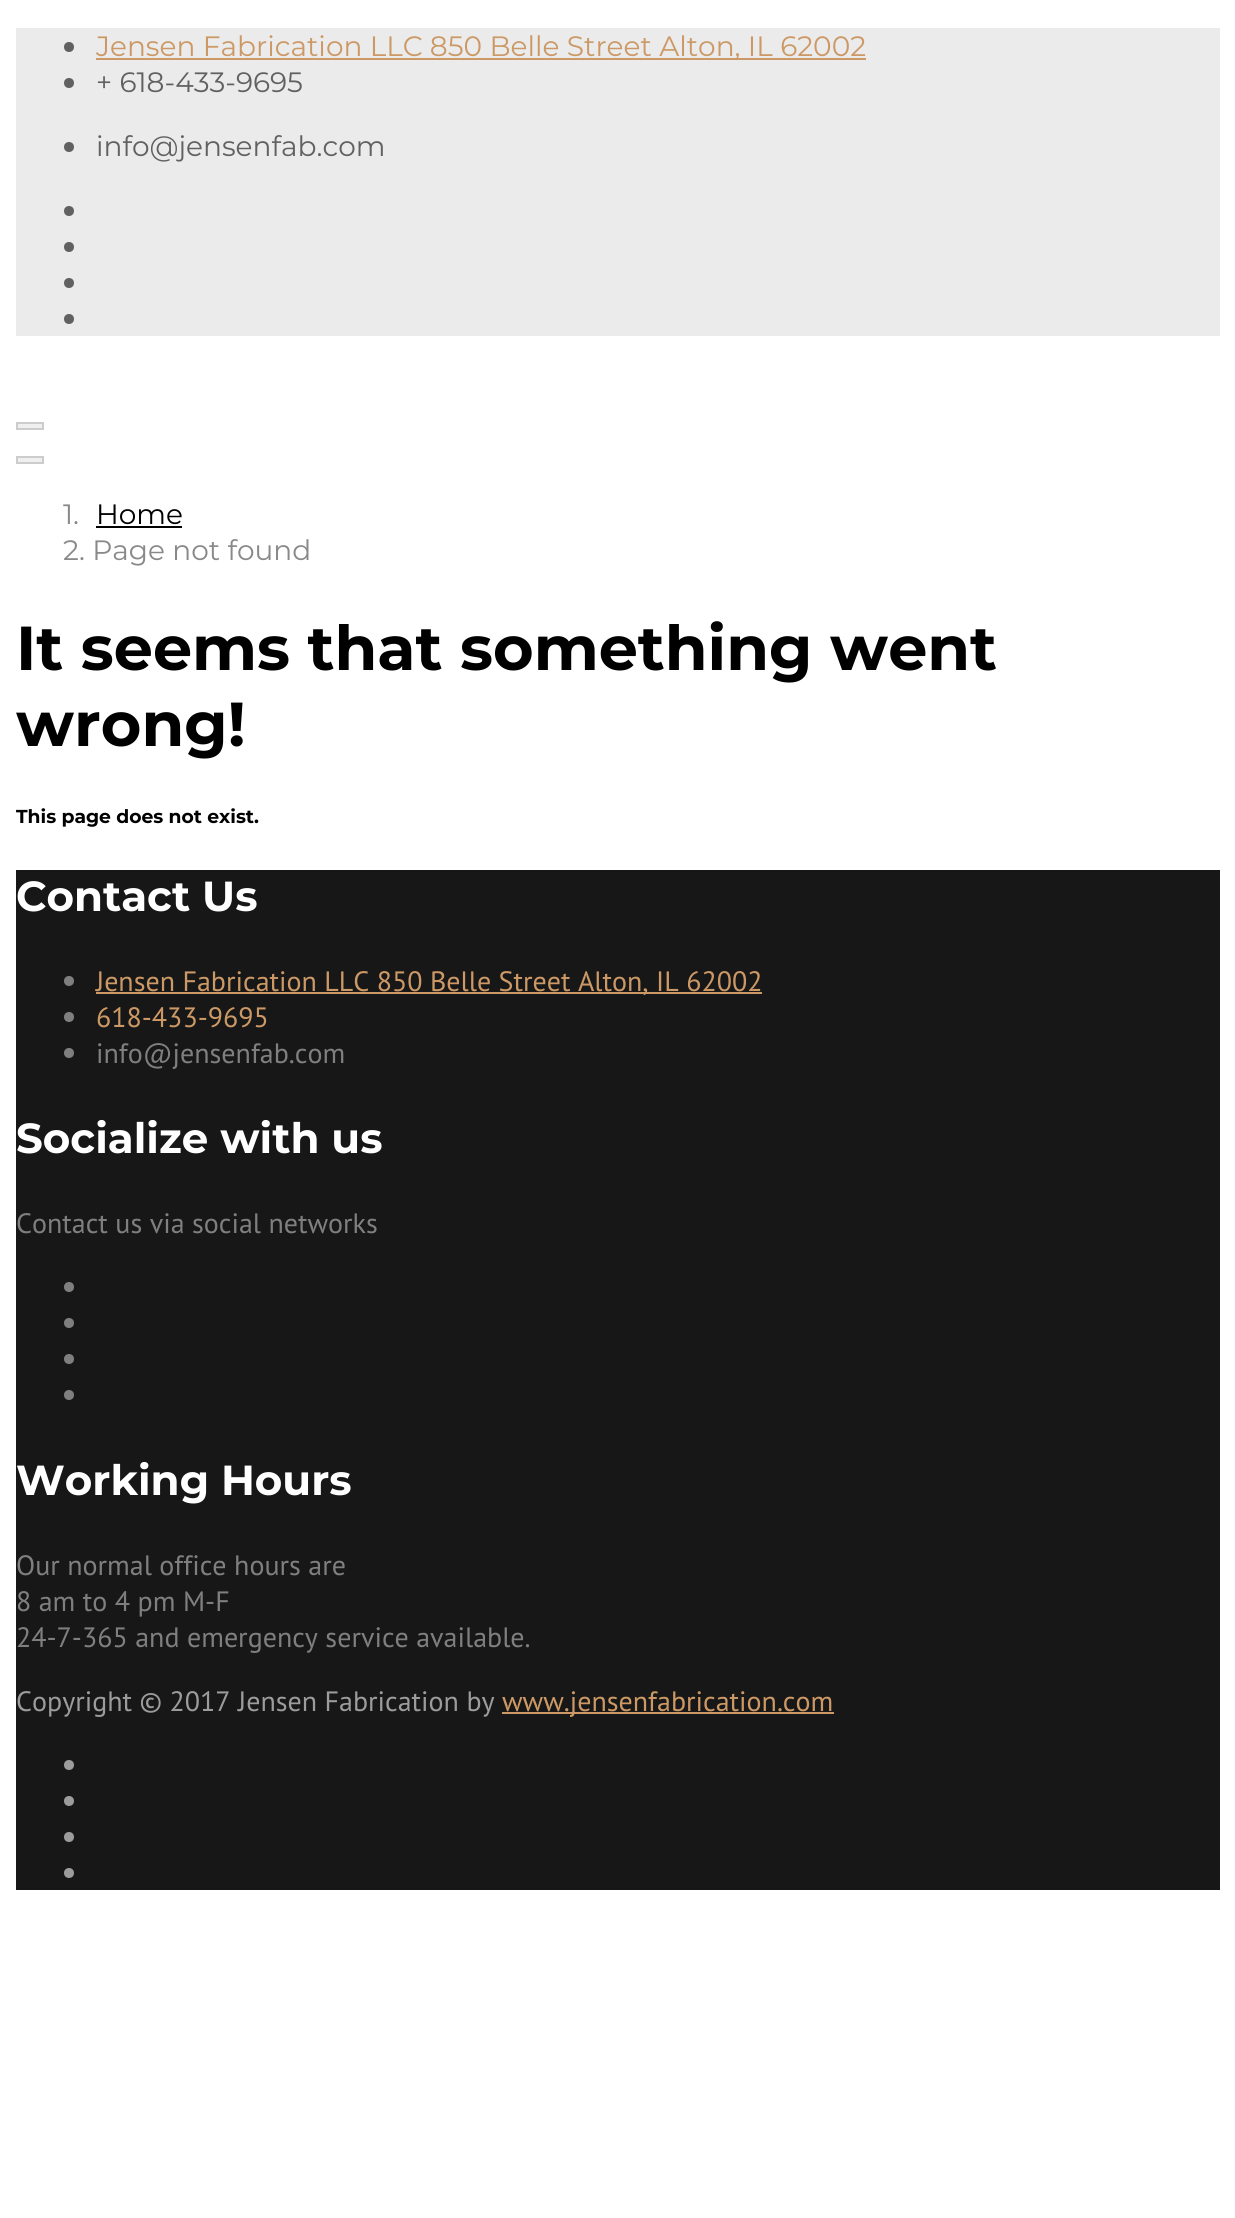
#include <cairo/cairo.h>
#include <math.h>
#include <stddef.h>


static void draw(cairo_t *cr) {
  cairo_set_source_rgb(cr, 1, 1, 1);
  cairo_paint(cr);
  cairo_set_source_rgb(cr, 235 / 255.0, 235 / 255.0, 235 / 255.0);
  cairo_rectangle(cr, 16, 28, 1204, 308);
  cairo_fill(cr);
  cairo_set_source_rgb(cr, 97 / 255.0, 97 / 255.0, 97 / 255.0);
  cairo_arc(cr, 69, 47, 5, 0, 2 * M_PI);
  cairo_fill(cr);
  cairo_set_source_rgb(cr, 204 / 255.0, 153 / 255.0, 102 / 255.0);
  cairo_rectangle(cr, 96, 58, 770, 2);
  cairo_fill(cr);
  cairo_set_source_rgb(cr, 97 / 255.0, 97 / 255.0, 97 / 255.0);
  cairo_arc(cr, 69, 83, 5, 0, 2 * M_PI);
  cairo_fill(cr);
  cairo_arc(cr, 69, 147, 5, 0, 2 * M_PI);
  cairo_fill(cr);
  cairo_arc(cr, 69, 211, 5, 0, 2 * M_PI);
  cairo_fill(cr);
  cairo_arc(cr, 69, 247, 5, 0, 2 * M_PI);
  cairo_fill(cr);
  cairo_arc(cr, 69, 283, 5, 0, 2 * M_PI);
  cairo_fill(cr);
  cairo_arc(cr, 69, 319, 5, 0, 2 * M_PI);
  cairo_fill(cr);
  cairo_set_source_rgb(cr, 239 / 255.0, 239 / 255.0, 239 / 255.0);
  cairo_rectangle(cr, 17, 423, 26, 6);
  cairo_fill_preserve(cr);
  cairo_set_source_rgb(cr, 204 / 255.0, 204 / 255.0, 204 / 255.0);
  cairo_stroke(cr);
  cairo_set_source_rgb(cr, 239 / 255.0, 239 / 255.0, 239 / 255.0);
  cairo_rectangle(cr, 17, 457, 26, 6);
  cairo_fill_preserve(cr);
  cairo_set_source_rgb(cr, 204 / 255.0, 204 / 255.0, 204 / 255.0);
  cairo_stroke(cr);
  cairo_set_source_rgb(cr, 0, 0, 0);
  cairo_rectangle(cr, 96, 526, 86, 2);
  cairo_fill(cr);
  cairo_set_source_rgb(cr, 23 / 255.0, 23 / 255.0, 23 / 255.0);
  cairo_rectangle(cr, 16, 870, 1204, 1020);
  cairo_fill(cr);
  cairo_set_source_rgb(cr, 127 / 255.0, 127 / 255.0, 127 / 255.0);
  cairo_arc(cr, 69, 981, 5, 0, 2 * M_PI);
  cairo_fill(cr);
  cairo_set_source_rgb(cr, 204 / 255.0, 153 / 255.0, 102 / 255.0);
  cairo_rectangle(cr, 96, 992, 666, 2);
  cairo_fill(cr);
  cairo_set_source_rgb(cr, 127 / 255.0, 127 / 255.0, 127 / 255.0);
  cairo_arc(cr, 69, 1017, 5, 0, 2 * M_PI);
  cairo_fill(cr);
  cairo_arc(cr, 69, 1053, 5, 0, 2 * M_PI);
  cairo_fill(cr);
  cairo_arc(cr, 69, 1287, 5, 0, 2 * M_PI);
  cairo_fill(cr);
  cairo_arc(cr, 69, 1323, 5, 0, 2 * M_PI);
  cairo_fill(cr);
  cairo_arc(cr, 69, 1359, 5, 0, 2 * M_PI);
  cairo_fill(cr);
  cairo_arc(cr, 69, 1395, 5, 0, 2 * M_PI);
  cairo_fill(cr);
  cairo_set_source_rgb(cr, 204 / 255.0, 153 / 255.0, 102 / 255.0);
  cairo_rectangle(cr, 502, 1712, 332, 2);
  cairo_fill(cr);
  cairo_set_source_rgb(cr, 156 / 255.0, 156 / 255.0, 156 / 255.0);
  cairo_arc(cr, 69, 1765, 5, 0, 2 * M_PI);
  cairo_fill(cr);
  cairo_arc(cr, 69, 1801, 5, 0, 2 * M_PI);
  cairo_fill(cr);
  cairo_arc(cr, 69, 1837, 5, 0, 2 * M_PI);
  cairo_fill(cr);
  cairo_arc(cr, 69, 1873, 5, 0, 2 * M_PI);
  cairo_fill(cr);
  cairo_select_font_face(cr, "Montserrat", CAIRO_FONT_SLANT_NORMAL, CAIRO_FONT_WEIGHT_NORMAL);
  cairo_set_font_size(cr, 28);
  cairo_set_source_rgb(cr, 204 / 255.0, 153 / 255.0, 102 / 255.0);
  cairo_move_to(cr, 96, 56);
  cairo_show_text(cr, "Jensen Fabrication LLC 850 Belle Street Alton, IL 62002");
  cairo_set_source_rgb(cr, 97 / 255.0, 97 / 255.0, 97 / 255.0);
  cairo_move_to(cr, 96, 92);
  cairo_show_text(cr, "+ 618-433-9695");
  cairo_move_to(cr, 96, 156);
  cairo_show_text(cr, "info@jensenfab.com");
  cairo_set_source_rgb(cr, 137 / 255.0, 137 / 255.0, 137 / 255.0);
  cairo_move_to(cr, 63, 524);
  cairo_show_text(cr, "1.");
  cairo_set_source_rgb(cr, 0, 0, 0);
  cairo_move_to(cr, 96, 524);
  cairo_show_text(cr, "Home");
  cairo_set_source_rgb(cr, 137 / 255.0, 137 / 255.0, 137 / 255.0);
  cairo_move_to(cr, 63, 560);
  cairo_show_text(cr, "2. Page not found");
  cairo_select_font_face(cr, "Montserrat", CAIRO_FONT_SLANT_NORMAL, CAIRO_FONT_WEIGHT_BOLD);
  cairo_set_font_size(cr, 62);
  cairo_set_source_rgb(cr, 0, 0, 0);
  cairo_move_to(cr, 16, 670);
  cairo_show_text(cr, "It seems that something went");
  cairo_move_to(cr, 16, 746);
  cairo_show_text(cr, "wrong!");
  cairo_set_font_size(cr, 18.75);
  cairo_move_to(cr, 16, 823);
  cairo_show_text(cr, "This page does not exist.");
  cairo_set_font_size(cr, 42);
  cairo_set_source_rgb(cr, 1, 1, 1);
  cairo_move_to(cr, 16, 911);
  cairo_show_text(cr, "Contact Us");
  cairo_select_font_face(cr, "PT Sans", CAIRO_FONT_SLANT_NORMAL, CAIRO_FONT_WEIGHT_NORMAL);
  cairo_set_font_size(cr, 28);
  cairo_set_source_rgb(cr, 204 / 255.0, 153 / 255.0, 102 / 255.0);
  cairo_move_to(cr, 96, 991);
  cairo_show_text(cr, "Jensen Fabrication LLC 850 Belle Street Alton, IL 62002");
  cairo_move_to(cr, 96, 1027);
  cairo_show_text(cr, "618-433-9695");
  cairo_set_source_rgb(cr, 127 / 255.0, 127 / 255.0, 127 / 255.0);
  cairo_move_to(cr, 96, 1063);
  cairo_show_text(cr, "info@jensenfab.com");
  cairo_select_font_face(cr, "Montserrat", CAIRO_FONT_SLANT_NORMAL, CAIRO_FONT_WEIGHT_BOLD);
  cairo_set_font_size(cr, 42);
  cairo_set_source_rgb(cr, 1, 1, 1);
  cairo_move_to(cr, 16, 1153);
  cairo_show_text(cr, "Socialize with us");
  cairo_select_font_face(cr, "PT Sans", CAIRO_FONT_SLANT_NORMAL, CAIRO_FONT_WEIGHT_NORMAL);
  cairo_set_font_size(cr, 28);
  cairo_set_source_rgb(cr, 127 / 255.0, 127 / 255.0, 127 / 255.0);
  cairo_move_to(cr, 16, 1233);
  cairo_show_text(cr, "Contact us via social networks");
  cairo_select_font_face(cr, "Montserrat", CAIRO_FONT_SLANT_NORMAL, CAIRO_FONT_WEIGHT_BOLD);
  cairo_set_font_size(cr, 42);
  cairo_set_source_rgb(cr, 1, 1, 1);
  cairo_move_to(cr, 16, 1495);
  cairo_show_text(cr, "Working Hours");
  cairo_select_font_face(cr, "PT Sans", CAIRO_FONT_SLANT_NORMAL, CAIRO_FONT_WEIGHT_NORMAL);
  cairo_set_font_size(cr, 28);
  cairo_set_source_rgb(cr, 127 / 255.0, 127 / 255.0, 127 / 255.0);
  cairo_move_to(cr, 16, 1575);
  cairo_show_text(cr, "Our normal office hours are");
  cairo_move_to(cr, 16, 1611);
  cairo_show_text(cr, "8 am to 4 pm M-F");
  cairo_move_to(cr, 16, 1647);
  cairo_show_text(cr, "24-7-365 and emergency service available.");
  cairo_set_source_rgb(cr, 156 / 255.0, 156 / 255.0, 156 / 255.0);
  cairo_move_to(cr, 16, 1711);
  cairo_show_text(cr, "Copyright © 2017 Jensen Fabrication by");
  cairo_set_source_rgb(cr, 204 / 255.0, 153 / 255.0, 102 / 255.0);
  cairo_move_to(cr, 502, 1711);
  cairo_show_text(cr, "www.jensenfabrication.com");
}

int main(void) {
  cairo_surface_t *surface = cairo_image_surface_create(CAIRO_FORMAT_RGB24, 1235, 2218);
  cairo_t *cr = cairo_create(surface);
  cairo_font_options_t *options = cairo_font_options_create();
  cairo_font_options_set_hint_metrics(options, CAIRO_HINT_METRICS_OFF);
  cairo_font_options_set_hint_style(options, CAIRO_HINT_STYLE_NONE);
  cairo_set_font_options(cr, options);
  cairo_set_miter_limit(cr, 4);
  draw(cr);
  cairo_surface_write_to_png(surface, "out.png");
  cairo_font_options_destroy(options);
  cairo_destroy(cr);
  cairo_surface_destroy(surface);
  return 0;
}
